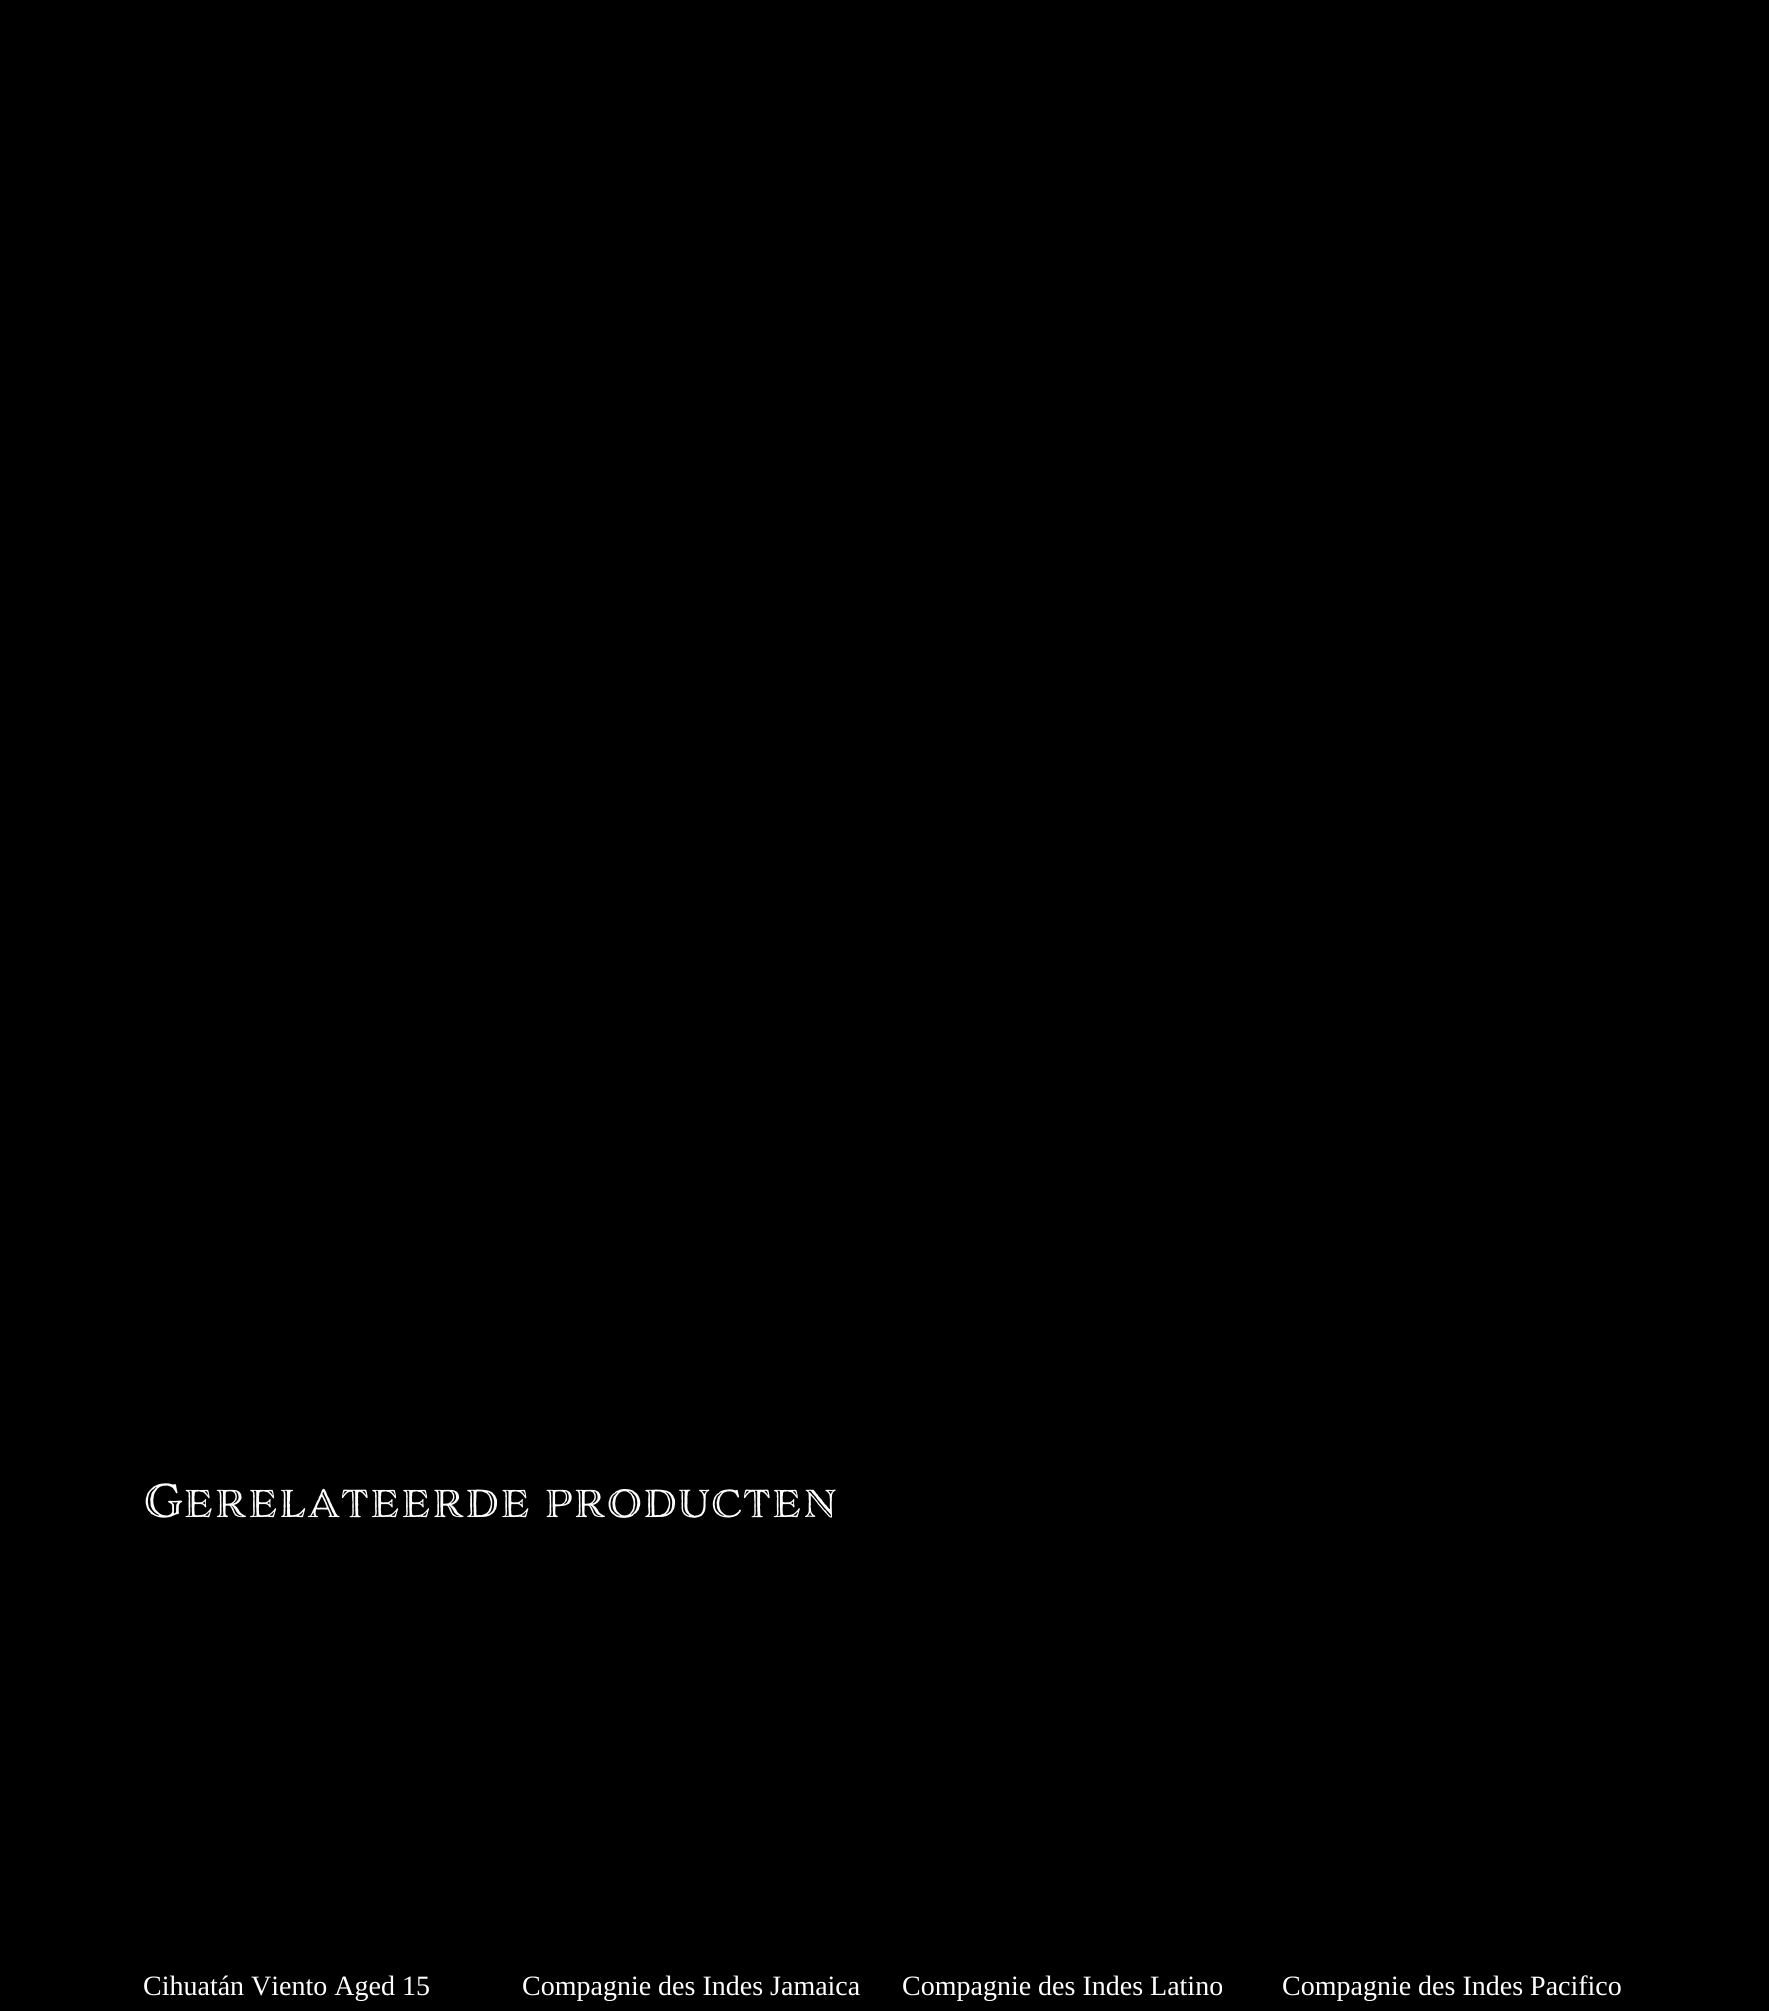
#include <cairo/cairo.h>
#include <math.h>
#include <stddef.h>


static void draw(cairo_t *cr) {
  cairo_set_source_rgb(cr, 0, 0, 0);
  cairo_paint(cr);
  cairo_select_font_face(cr, "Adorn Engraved", CAIRO_FONT_SLANT_NORMAL, CAIRO_FONT_WEIGHT_NORMAL);
  cairo_set_font_size(cr, 43.75);
  cairo_set_source_rgb(cr, 1, 1, 1);
  cairo_move_to(cr, 143, 1517);
  cairo_show_text(cr, "Gerelateerde producten");
  cairo_save(cr);
  cairo_rectangle(cr, 144, 1594, 1484, 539);
  cairo_clip(cr);
  cairo_select_font_face(cr, "Liberation Serif", CAIRO_FONT_SLANT_NORMAL, CAIRO_FONT_WEIGHT_NORMAL);
  cairo_set_font_size(cr, 28);
  cairo_move_to(cr, 143, 1995);
  cairo_show_text(cr, "Cihuatán Viento Aged 15");
  cairo_restore(cr);
  cairo_select_font_face(cr, "Liberation Serif", CAIRO_FONT_SLANT_NORMAL, CAIRO_FONT_WEIGHT_NORMAL);
  cairo_set_font_size(cr, 28);
  cairo_move_to(cr, 522, 1995);
  cairo_show_text(cr, "Compagnie des Indes Jamaica");
  cairo_move_to(cr, 902, 1995);
  cairo_show_text(cr, "Compagnie des Indes Latino");
  cairo_move_to(cr, 1282, 1995);
  cairo_show_text(cr, "Compagnie des Indes Pacifico");
}

int main(void) {
  cairo_surface_t *surface = cairo_image_surface_create(CAIRO_FORMAT_RGB24, 1769, 2011);
  cairo_t *cr = cairo_create(surface);
  cairo_font_options_t *options = cairo_font_options_create();
  cairo_font_options_set_hint_metrics(options, CAIRO_HINT_METRICS_OFF);
  cairo_font_options_set_hint_style(options, CAIRO_HINT_STYLE_NONE);
  cairo_set_font_options(cr, options);
  cairo_set_miter_limit(cr, 4);
  draw(cr);
  cairo_surface_write_to_png(surface, "out.png");
  cairo_font_options_destroy(options);
  cairo_destroy(cr);
  cairo_surface_destroy(surface);
  return 0;
}
